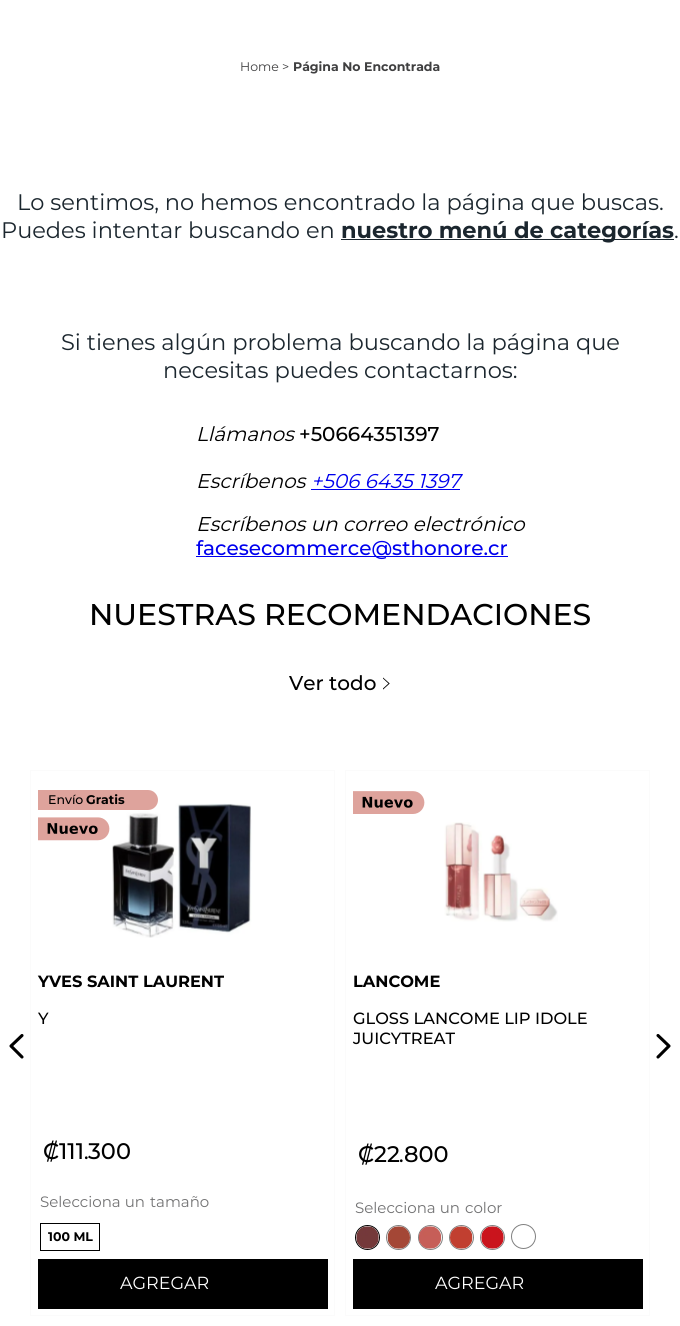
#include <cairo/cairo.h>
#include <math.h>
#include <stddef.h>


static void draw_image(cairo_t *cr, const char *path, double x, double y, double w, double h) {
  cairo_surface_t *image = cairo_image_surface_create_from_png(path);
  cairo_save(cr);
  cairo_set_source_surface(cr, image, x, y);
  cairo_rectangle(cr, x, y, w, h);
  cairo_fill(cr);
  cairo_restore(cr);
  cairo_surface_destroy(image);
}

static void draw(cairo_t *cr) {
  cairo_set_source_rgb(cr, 1, 1, 1);
  cairo_paint(cr);
  cairo_set_source_rgb(cr, 27 / 255.0, 38 / 255.0, 46 / 255.0);
  cairo_rectangle(cr, 341, 239, 333, 1);
  cairo_fill(cr);
  cairo_set_source_rgb(cr, 0, 0, 238 / 255.0);
  cairo_rectangle(cr, 311, 489, 149, 1);
  cairo_fill(cr);
  cairo_rectangle(cr, 196, 556, 312, 1);
  cairo_fill(cr);
  draw_image(cr, "images/1.png", 383, 677, 7, 13);
  cairo_new_path(cr);
  cairo_move_to(cr, 22, 1035.5);
  cairo_line_to(cr, 11, 1046);
  cairo_line_to(cr, 22, 1057);
  cairo_set_source_rgb(cr, 0, 0, 0);
  cairo_set_line_width(cr, 3.1);
  cairo_set_line_cap(cr, CAIRO_LINE_CAP_ROUND);
  cairo_set_line_join(cr, CAIRO_LINE_JOIN_ROUND);
  cairo_stroke(cr);
  cairo_rectangle(cr, 30.5, 770.5, 304, 545);
  cairo_set_source_rgb(cr, 251 / 255.0, 251 / 255.0, 251 / 255.0);
  cairo_set_line_width(cr, 1);
  cairo_set_line_cap(cr, CAIRO_LINE_CAP_BUTT);
  cairo_set_line_join(cr, CAIRO_LINE_JOIN_MITER);
  cairo_stroke(cr);
  draw_image(cr, "images/3.png", 112, 803, 140, 135);
  cairo_set_source_rgb(cr, 222 / 255.0, 163 / 255.0, 156 / 255.0);
  cairo_new_path(cr);
  cairo_move_to(cr, 38, 790);
  cairo_line_to(cr, 148, 790);
  cairo_curve_to(cr, 153.5, 790, 158, 794.5, 158, 800);
  cairo_curve_to(cr, 158, 805.5, 153.5, 810, 148, 810);
  cairo_line_to(cr, 38, 810);
  cairo_close_path(cr);
  cairo_fill(cr);
  draw_image(cr, "images/2.png", 38, 817, 72, 24);
  cairo_rectangle(cr, 40.5, 1223.5, 59, 27);
  cairo_set_source_rgb(cr, 0, 0, 0);
  cairo_stroke(cr);
  cairo_rectangle(cr, 38, 1259, 290, 50);
  cairo_fill(cr);
  cairo_rectangle(cr, 345.5, 770.5, 304, 545);
  cairo_set_source_rgb(cr, 251 / 255.0, 251 / 255.0, 251 / 255.0);
  cairo_stroke(cr);
  draw_image(cr, "images/4.png", 353, 791, 72, 23);
  draw_image(cr, "images/5.png", 444, 822, 114, 100);
  cairo_arc(cr, 367.5, 1237.5, 12, 0, 2 * M_PI);
  cairo_set_source_rgb(cr, 0, 0, 0);
  cairo_stroke(cr);
  draw_image(cr, "images/6.png", 356, 1226, 23, 23);
  cairo_arc(cr, 398.5, 1237.5, 12, 0, 2 * M_PI);
  cairo_set_source_rgb(cr, 128 / 255.0, 128 / 255.0, 128 / 255.0);
  cairo_stroke(cr);
  draw_image(cr, "images/7.png", 387, 1226, 23, 23);
  cairo_arc(cr, 430.5, 1237.5, 12, 0, 2 * M_PI);
  cairo_stroke(cr);
  draw_image(cr, "images/8.png", 418, 1226, 24, 23);
  cairo_arc(cr, 461.5, 1237.5, 12, 0, 2 * M_PI);
  cairo_stroke(cr);
  draw_image(cr, "images/9.png", 450, 1226, 23, 23);
  cairo_arc(cr, 492.5, 1237.5, 12, 0, 2 * M_PI);
  cairo_stroke(cr);
  draw_image(cr, "images/10.png", 481, 1226, 23, 23);
  cairo_arc(cr, 523.5, 1236.5, 12, 0, 2 * M_PI);
  cairo_stroke(cr);
  cairo_set_source_rgb(cr, 0, 0, 0);
  cairo_rectangle(cr, 353, 1259, 290, 50);
  cairo_fill(cr);
  cairo_new_path(cr);
  cairo_move_to(cr, 658, 1057);
  cairo_line_to(cr, 669, 1046);
  cairo_line_to(cr, 658, 1035.5);
  cairo_set_line_width(cr, 3.1);
  cairo_set_line_cap(cr, CAIRO_LINE_CAP_ROUND);
  cairo_set_line_join(cr, CAIRO_LINE_JOIN_ROUND);
  cairo_stroke(cr);
  cairo_select_font_face(cr, "Montserrat", CAIRO_FONT_SLANT_NORMAL, CAIRO_FONT_WEIGHT_NORMAL);
  cairo_set_font_size(cr, 12.5);
  cairo_set_source_rgb(cr, 63 / 255.0, 63 / 255.0, 64 / 255.0);
  cairo_move_to(cr, 240, 71);
  cairo_show_text(cr, "Home >");
  cairo_select_font_face(cr, "Montserrat", CAIRO_FONT_SLANT_NORMAL, CAIRO_FONT_WEIGHT_BOLD);
  cairo_move_to(cr, 293, 71);
  cairo_show_text(cr, "Página No Encontrada");
  cairo_select_font_face(cr, "Montserrat", CAIRO_FONT_SLANT_NORMAL, CAIRO_FONT_WEIGHT_NORMAL);
  cairo_set_font_size(cr, 22.5);
  cairo_set_source_rgb(cr, 27 / 255.0, 38 / 255.0, 46 / 255.0);
  cairo_move_to(cr, 17, 210);
  cairo_show_text(cr, "Lo sentimos, no hemos encontrado la página que buscas.");
  cairo_move_to(cr, 1, 238);
  cairo_show_text(cr, "Puedes intentar buscando en");
  cairo_select_font_face(cr, "Montserrat", CAIRO_FONT_SLANT_NORMAL, CAIRO_FONT_WEIGHT_BOLD);
  cairo_move_to(cr, 341, 238);
  cairo_show_text(cr, "nuestro menú de categorías");
  cairo_select_font_face(cr, "Montserrat", CAIRO_FONT_SLANT_NORMAL, CAIRO_FONT_WEIGHT_NORMAL);
  cairo_move_to(cr, 674, 238);
  cairo_show_text(cr, ".");
  cairo_move_to(cr, 61, 350);
  cairo_show_text(cr, "Si tienes algún problema buscando la página que");
  cairo_move_to(cr, 163, 378);
  cairo_show_text(cr, "necesitas puedes contactarnos:");
  cairo_select_font_face(cr, "Montserrat", CAIRO_FONT_SLANT_ITALIC, CAIRO_FONT_WEIGHT_NORMAL);
  cairo_set_font_size(cr, 20);
  cairo_set_source_rgb(cr, 0, 0, 0);
  cairo_move_to(cr, 196, 441);
  cairo_show_text(cr, "Llámanos");
  cairo_select_font_face(cr, "Montserrat Medium", CAIRO_FONT_SLANT_NORMAL, CAIRO_FONT_WEIGHT_NORMAL);
  cairo_move_to(cr, 299, 441);
  cairo_show_text(cr, "+50664351397");
  cairo_select_font_face(cr, "Montserrat", CAIRO_FONT_SLANT_ITALIC, CAIRO_FONT_WEIGHT_NORMAL);
  cairo_move_to(cr, 196, 488);
  cairo_show_text(cr, "Escríbenos");
  cairo_set_source_rgb(cr, 0, 0, 238 / 255.0);
  cairo_move_to(cr, 311, 488);
  cairo_show_text(cr, "+506 6435 1397");
  cairo_set_source_rgb(cr, 0, 0, 0);
  cairo_move_to(cr, 196, 531);
  cairo_show_text(cr, "Escríbenos un correo electrónico");
  cairo_select_font_face(cr, "Montserrat Medium", CAIRO_FONT_SLANT_NORMAL, CAIRO_FONT_WEIGHT_NORMAL);
  cairo_set_source_rgb(cr, 0, 0, 238 / 255.0);
  cairo_move_to(cr, 196, 555);
  cairo_show_text(cr, "facesecommerce@sthonore.cr");
  cairo_set_font_size(cr, 30);
  cairo_set_source_rgb(cr, 0, 0, 0);
  cairo_move_to(cr, 89, 625);
  cairo_show_text(cr, "NUESTRAS RECOMENDACIONES");
  cairo_set_font_size(cr, 20);
  cairo_move_to(cr, 289, 690);
  cairo_show_text(cr, "Ver todo");
  cairo_set_font_size(cr, 12.5);
  cairo_move_to(cr, 48, 804);
  cairo_show_text(cr, "Envío");
  cairo_select_font_face(cr, "Montserrat", CAIRO_FONT_SLANT_NORMAL, CAIRO_FONT_WEIGHT_BOLD);
  cairo_move_to(cr, 86, 804);
  cairo_show_text(cr, "Gratis");
  cairo_set_font_size(cr, 16.25);
  cairo_move_to(cr, 38, 987);
  cairo_show_text(cr, "YVES SAINT LAURENT");
  cairo_select_font_face(cr, "Montserrat Medium", CAIRO_FONT_SLANT_NORMAL, CAIRO_FONT_WEIGHT_NORMAL);
  cairo_move_to(cr, 38, 1024);
  cairo_show_text(cr, "Y");
  cairo_set_font_size(cr, 22.5);
  cairo_move_to(cr, 43, 1159);
  cairo_show_text(cr, "₡111");
  cairo_set_font_size(cr, 20);
  cairo_move_to(cr, 84, 1159);
  cairo_show_text(cr, ".");
  cairo_set_font_size(cr, 22.5);
  cairo_move_to(cr, 88, 1159);
  cairo_show_text(cr, "300");
  cairo_select_font_face(cr, "Montserrat", CAIRO_FONT_SLANT_NORMAL, CAIRO_FONT_WEIGHT_NORMAL);
  cairo_set_font_size(cr, 15);
  cairo_set_source_rgb(cr, 114 / 255.0, 114 / 255.0, 115 / 255.0);
  cairo_move_to(cr, 40, 1207);
  cairo_show_text(cr, "Selecciona un");
  cairo_move_to(cr, 150, 1207);
  cairo_show_text(cr, "tamaño");
  cairo_select_font_face(cr, "Montserrat", CAIRO_FONT_SLANT_NORMAL, CAIRO_FONT_WEIGHT_BOLD);
  cairo_set_font_size(cr, 12.5);
  cairo_set_source_rgb(cr, 0, 0, 0);
  cairo_move_to(cr, 48, 1241);
  cairo_show_text(cr, "100 ML");
  cairo_select_font_face(cr, "Montserrat", CAIRO_FONT_SLANT_NORMAL, CAIRO_FONT_WEIGHT_NORMAL);
  cairo_set_font_size(cr, 17.5);
  cairo_set_source_rgb(cr, 1, 1, 1);
  cairo_move_to(cr, 120, 1289);
  cairo_show_text(cr, "AGREGAR");
  cairo_select_font_face(cr, "Montserrat", CAIRO_FONT_SLANT_NORMAL, CAIRO_FONT_WEIGHT_BOLD);
  cairo_set_font_size(cr, 16.25);
  cairo_set_source_rgb(cr, 0, 0, 0);
  cairo_move_to(cr, 353, 987);
  cairo_show_text(cr, "LANCOME");
  cairo_select_font_face(cr, "Montserrat Medium", CAIRO_FONT_SLANT_NORMAL, CAIRO_FONT_WEIGHT_NORMAL);
  cairo_move_to(cr, 353, 1024);
  cairo_show_text(cr, "GLOSS LANCOME LIP IDOLE");
  cairo_move_to(cr, 353, 1044);
  cairo_show_text(cr, "JUICYTREAT");
  cairo_set_font_size(cr, 22.5);
  cairo_move_to(cr, 358, 1162);
  cairo_show_text(cr, "₡22");
  cairo_set_font_size(cr, 20);
  cairo_move_to(cr, 399, 1162);
  cairo_show_text(cr, ".");
  cairo_set_font_size(cr, 22.5);
  cairo_move_to(cr, 404, 1162);
  cairo_show_text(cr, "800");
  cairo_select_font_face(cr, "Montserrat", CAIRO_FONT_SLANT_NORMAL, CAIRO_FONT_WEIGHT_NORMAL);
  cairo_set_font_size(cr, 15);
  cairo_set_source_rgb(cr, 114 / 255.0, 114 / 255.0, 115 / 255.0);
  cairo_move_to(cr, 355, 1213);
  cairo_show_text(cr, "Selecciona un");
  cairo_move_to(cr, 465, 1213);
  cairo_show_text(cr, "color");
  cairo_set_font_size(cr, 17.5);
  cairo_set_source_rgb(cr, 1, 1, 1);
  cairo_move_to(cr, 435, 1289);
  cairo_show_text(cr, "AGREGAR");
}

int main(void) {
  cairo_surface_t *surface = cairo_image_surface_create(CAIRO_FORMAT_RGB24, 680, 1326);
  cairo_t *cr = cairo_create(surface);
  cairo_font_options_t *options = cairo_font_options_create();
  cairo_font_options_set_hint_metrics(options, CAIRO_HINT_METRICS_OFF);
  cairo_font_options_set_hint_style(options, CAIRO_HINT_STYLE_NONE);
  cairo_set_font_options(cr, options);
  cairo_set_miter_limit(cr, 4);
  draw(cr);
  cairo_surface_write_to_png(surface, "out.png");
  cairo_font_options_destroy(options);
  cairo_destroy(cr);
  cairo_surface_destroy(surface);
  return 0;
}
